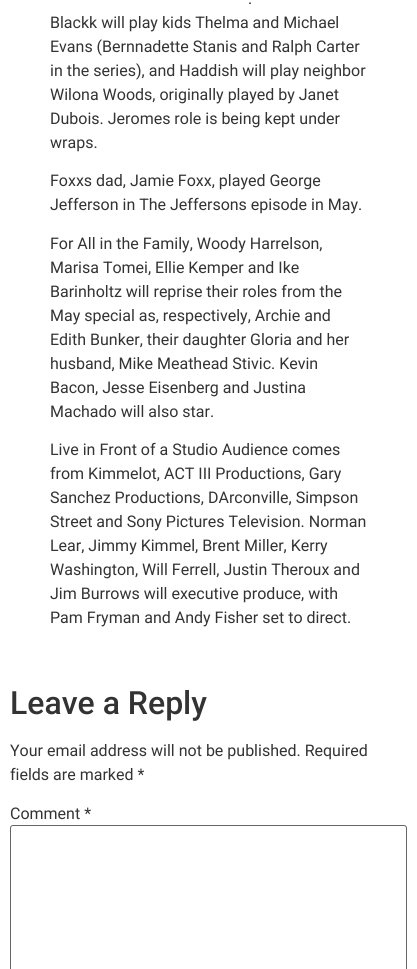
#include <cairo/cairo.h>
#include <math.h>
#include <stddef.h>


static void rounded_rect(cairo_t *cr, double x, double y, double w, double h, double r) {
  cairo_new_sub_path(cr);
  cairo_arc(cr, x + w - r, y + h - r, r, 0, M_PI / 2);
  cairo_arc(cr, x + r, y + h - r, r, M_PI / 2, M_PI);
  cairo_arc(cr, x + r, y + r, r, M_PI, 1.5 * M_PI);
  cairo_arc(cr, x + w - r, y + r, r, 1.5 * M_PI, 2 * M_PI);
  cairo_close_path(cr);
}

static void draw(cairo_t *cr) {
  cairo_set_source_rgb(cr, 1, 1, 1);
  cairo_paint(cr);
  rounded_rect(cr, 10.5, 825.5, 396, 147, 2.5);
  cairo_set_source_rgb(cr, 102 / 255.0, 102 / 255.0, 102 / 255.0);
  cairo_set_line_width(cr, 1);
  cairo_stroke(cr);
  cairo_select_font_face(cr, "Roboto", CAIRO_FONT_SLANT_NORMAL, CAIRO_FONT_WEIGHT_NORMAL);
  cairo_set_font_size(cr, 16);
  cairo_set_source_rgb(cr, 51 / 255.0, 51 / 255.0, 51 / 255.0);
  cairo_move_to(cr, 248, 4);
  cairo_show_text(cr, ".");
  cairo_move_to(cr, 50, 28);
  cairo_show_text(cr, "Blackk will play kids Thelma and Michael");
  cairo_move_to(cr, 50, 52);
  cairo_show_text(cr, "Evans (Bernnadette Stanis and Ralph Carter");
  cairo_move_to(cr, 50, 76);
  cairo_show_text(cr, "in the series), and Haddish will play neighbor");
  cairo_move_to(cr, 50, 100);
  cairo_show_text(cr, "Wilona Woods, originally played by Janet");
  cairo_move_to(cr, 50, 124);
  cairo_show_text(cr, "Dubois. Jeromes role is being kept under");
  cairo_move_to(cr, 50, 148);
  cairo_show_text(cr, "wraps.");
  cairo_move_to(cr, 50, 186);
  cairo_show_text(cr, "Foxxs dad, Jamie Foxx, played George");
  cairo_move_to(cr, 50, 210);
  cairo_show_text(cr, "Jefferson in The Jeffersons episode in May.");
  cairo_move_to(cr, 50, 249);
  cairo_show_text(cr, "For All in the Family, Woody Harrelson,");
  cairo_move_to(cr, 50, 273);
  cairo_show_text(cr, "Marisa Tomei, Ellie Kemper and Ike");
  cairo_move_to(cr, 50, 297);
  cairo_show_text(cr, "Barinholtz will reprise their roles from the");
  cairo_move_to(cr, 50, 321);
  cairo_show_text(cr, "May special as, respectively, Archie and");
  cairo_move_to(cr, 50, 345);
  cairo_show_text(cr, "Edith Bunker, their daughter Gloria and her");
  cairo_move_to(cr, 50, 369);
  cairo_show_text(cr, "husband, Mike Meathead Stivic. Kevin");
  cairo_move_to(cr, 50, 393);
  cairo_show_text(cr, "Bacon, Jesse Eisenberg and Justina");
  cairo_move_to(cr, 50, 417);
  cairo_show_text(cr, "Machado will also star.");
  cairo_move_to(cr, 50, 455);
  cairo_show_text(cr, "Live in Front of a Studio Audience comes");
  cairo_move_to(cr, 50, 479);
  cairo_show_text(cr, "from Kimmelot, ACT III Productions, Gary");
  cairo_move_to(cr, 50, 503);
  cairo_show_text(cr, "Sanchez Productions, DArconville, Simpson");
  cairo_move_to(cr, 50, 527);
  cairo_show_text(cr, "Street and Sony Pictures Television. Norman");
  cairo_move_to(cr, 50, 551);
  cairo_show_text(cr, "Lear, Jimmy Kimmel, Brent Miller, Kerry");
  cairo_move_to(cr, 50, 575);
  cairo_show_text(cr, "Washington, Will Ferrell, Justin Theroux and");
  cairo_move_to(cr, 50, 599);
  cairo_show_text(cr, "Jim Burrows will executive produce, with");
  cairo_move_to(cr, 50, 623);
  cairo_show_text(cr, "Pam Fryman and Andy Fisher set to direct.");
  cairo_select_font_face(cr, "Roboto Medium", CAIRO_FONT_SLANT_NORMAL, CAIRO_FONT_WEIGHT_NORMAL);
  cairo_set_font_size(cr, 32);
  cairo_move_to(cr, 10, 714);
  cairo_show_text(cr, "Leave a Reply");
  cairo_select_font_face(cr, "Roboto", CAIRO_FONT_SLANT_NORMAL, CAIRO_FONT_WEIGHT_NORMAL);
  cairo_set_font_size(cr, 16);
  cairo_move_to(cr, 10, 756);
  cairo_show_text(cr, "Your email address will not be published. Required");
  cairo_move_to(cr, 10, 780);
  cairo_show_text(cr, "fields are marked *");
  cairo_move_to(cr, 10, 819);
  cairo_show_text(cr, "Comment *");
}

int main(void) {
  cairo_surface_t *surface = cairo_image_surface_create(CAIRO_FORMAT_RGB24, 417, 969);
  cairo_t *cr = cairo_create(surface);
  cairo_font_options_t *options = cairo_font_options_create();
  cairo_font_options_set_hint_metrics(options, CAIRO_HINT_METRICS_OFF);
  cairo_font_options_set_hint_style(options, CAIRO_HINT_STYLE_NONE);
  cairo_set_font_options(cr, options);
  cairo_set_miter_limit(cr, 4);
  draw(cr);
  cairo_surface_write_to_png(surface, "out.png");
  cairo_font_options_destroy(options);
  cairo_destroy(cr);
  cairo_surface_destroy(surface);
  return 0;
}
